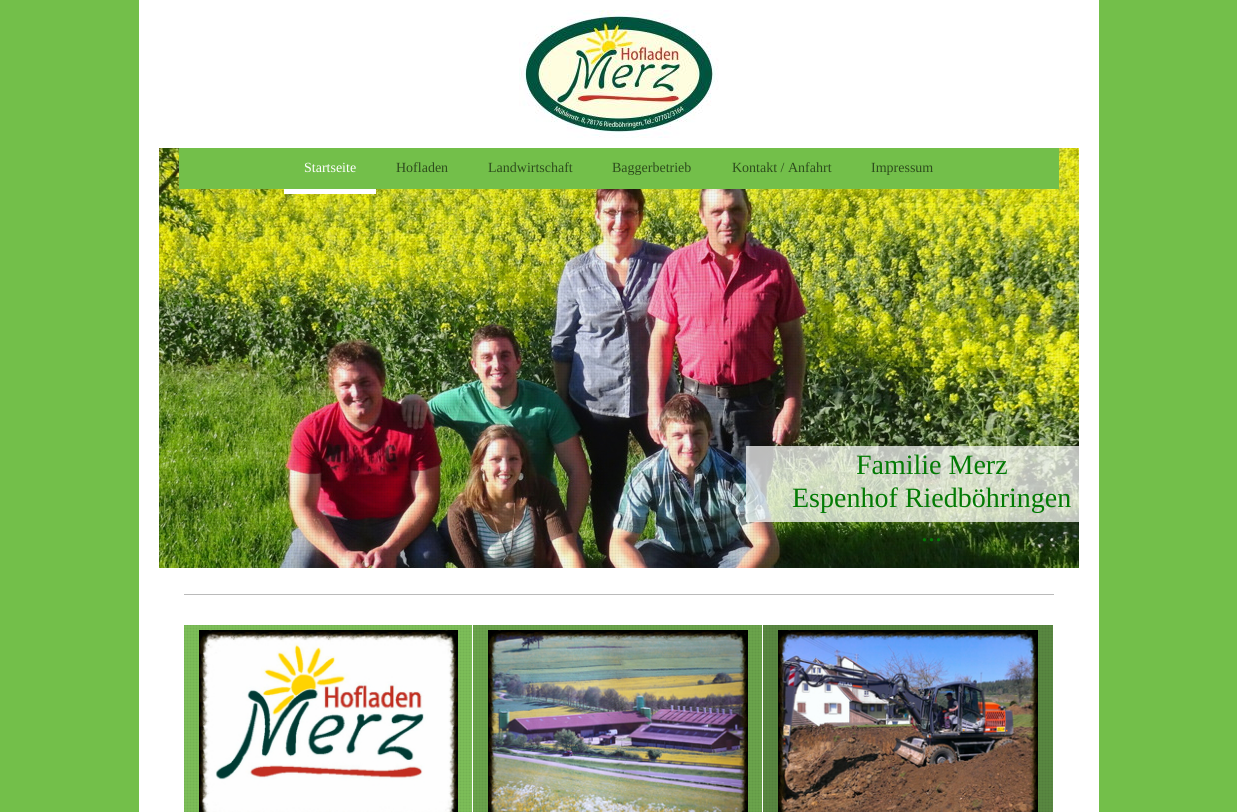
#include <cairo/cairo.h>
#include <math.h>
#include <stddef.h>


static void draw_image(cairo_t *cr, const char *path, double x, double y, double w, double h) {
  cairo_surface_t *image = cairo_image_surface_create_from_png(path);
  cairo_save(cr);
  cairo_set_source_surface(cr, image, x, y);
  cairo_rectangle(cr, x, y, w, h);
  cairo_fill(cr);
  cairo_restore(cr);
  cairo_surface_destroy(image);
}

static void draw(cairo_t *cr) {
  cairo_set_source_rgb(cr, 115 / 255.0, 191 / 255.0, 74 / 255.0);
  cairo_paint(cr);
  cairo_set_source_rgb(cr, 1, 1, 1);
  cairo_rectangle(cr, 139, 0, 960, 812);
  cairo_fill(cr);
  draw_image(cr, "images/1.png", 519, 10, 200, 128);
  draw_image(cr, "images/2.png", 159, 148, 920, 420);
  draw_image(cr, "images/3.png", 159, 148, 920, 420);
  cairo_set_source_rgb(cr, 115 / 255.0, 191 / 255.0, 74 / 255.0);
  cairo_rectangle(cr, 179, 148, 880, 41);
  cairo_fill(cr);
  cairo_set_source_rgb(cr, 1, 1, 1);
  cairo_rectangle(cr, 284, 189, 92, 5);
  cairo_fill(cr);
  cairo_set_source_rgba(cr, 1, 1, 1, 0.72);
  cairo_rectangle(cr, 746, 446, 333, 76);
  cairo_fill(cr);
  cairo_set_source_rgb(cr, 186 / 255.0, 186 / 255.0, 186 / 255.0);
  cairo_rectangle(cr, 184, 594, 870, 1);
  cairo_fill(cr);
  cairo_set_source_rgb(cr, 129 / 255.0, 197 / 255.0, 92 / 255.0);
  cairo_rectangle(cr, 184, 625, 288, 187);
  cairo_fill(cr);
  draw_image(cr, "images/4.png", 184, 625, 288, 187);
  draw_image(cr, "images/5.png", 199, 630, 259, 182);
  cairo_set_source_rgb(cr, 110 / 255.0, 170 / 255.0, 78 / 255.0);
  cairo_rectangle(cr, 473, 625, 289, 187);
  cairo_fill(cr);
  draw_image(cr, "images/6.png", 473, 625, 289, 187);
  draw_image(cr, "images/7.png", 488, 630, 260, 182);
  cairo_set_source_rgb(cr, 92 / 255.0, 140 / 255.0, 67 / 255.0);
  cairo_rectangle(cr, 763, 625, 290, 187);
  cairo_fill(cr);
  draw_image(cr, "images/8.png", 763, 625, 290, 187);
  draw_image(cr, "images/9.png", 778, 630, 260, 182);
  cairo_select_font_face(cr, "Liberation Serif", CAIRO_FONT_SLANT_NORMAL, CAIRO_FONT_WEIGHT_NORMAL);
  cairo_set_font_size(cr, 14);
  cairo_set_source_rgb(cr, 1, 1, 1);
  cairo_move_to(cr, 304, 172);
  cairo_show_text(cr, "Startseite");
  cairo_set_source_rgb(cr, 45 / 255.0, 77 / 255.0, 28 / 255.0);
  cairo_move_to(cr, 396, 172);
  cairo_show_text(cr, "Hofladen");
  cairo_move_to(cr, 488, 172);
  cairo_show_text(cr, "Landwirtschaft");
  cairo_move_to(cr, 612, 172);
  cairo_show_text(cr, "Baggerbetrieb");
  cairo_move_to(cr, 732, 172);
  cairo_show_text(cr, "Kontakt / Anfahrt");
  cairo_move_to(cr, 871, 172);
  cairo_show_text(cr, "Impressum");
  cairo_set_font_size(cr, 28);
  cairo_set_source_rgb(cr, 3 / 255.0, 122 / 255.0, 4 / 255.0);
  cairo_move_to(cr, 856, 474);
  cairo_show_text(cr, "Familie Merz");
  cairo_move_to(cr, 792, 507);
  cairo_show_text(cr, "Espenhof Riedböhringen");
  cairo_move_to(cr, 921, 541);
  cairo_show_text(cr, "...");
}

int main(void) {
  cairo_surface_t *surface = cairo_image_surface_create(CAIRO_FORMAT_RGB24, 1237, 812);
  cairo_t *cr = cairo_create(surface);
  cairo_font_options_t *options = cairo_font_options_create();
  cairo_font_options_set_hint_metrics(options, CAIRO_HINT_METRICS_OFF);
  cairo_font_options_set_hint_style(options, CAIRO_HINT_STYLE_NONE);
  cairo_set_font_options(cr, options);
  cairo_set_miter_limit(cr, 4);
  draw(cr);
  cairo_surface_write_to_png(surface, "out.png");
  cairo_font_options_destroy(options);
  cairo_destroy(cr);
  cairo_surface_destroy(surface);
  return 0;
}
